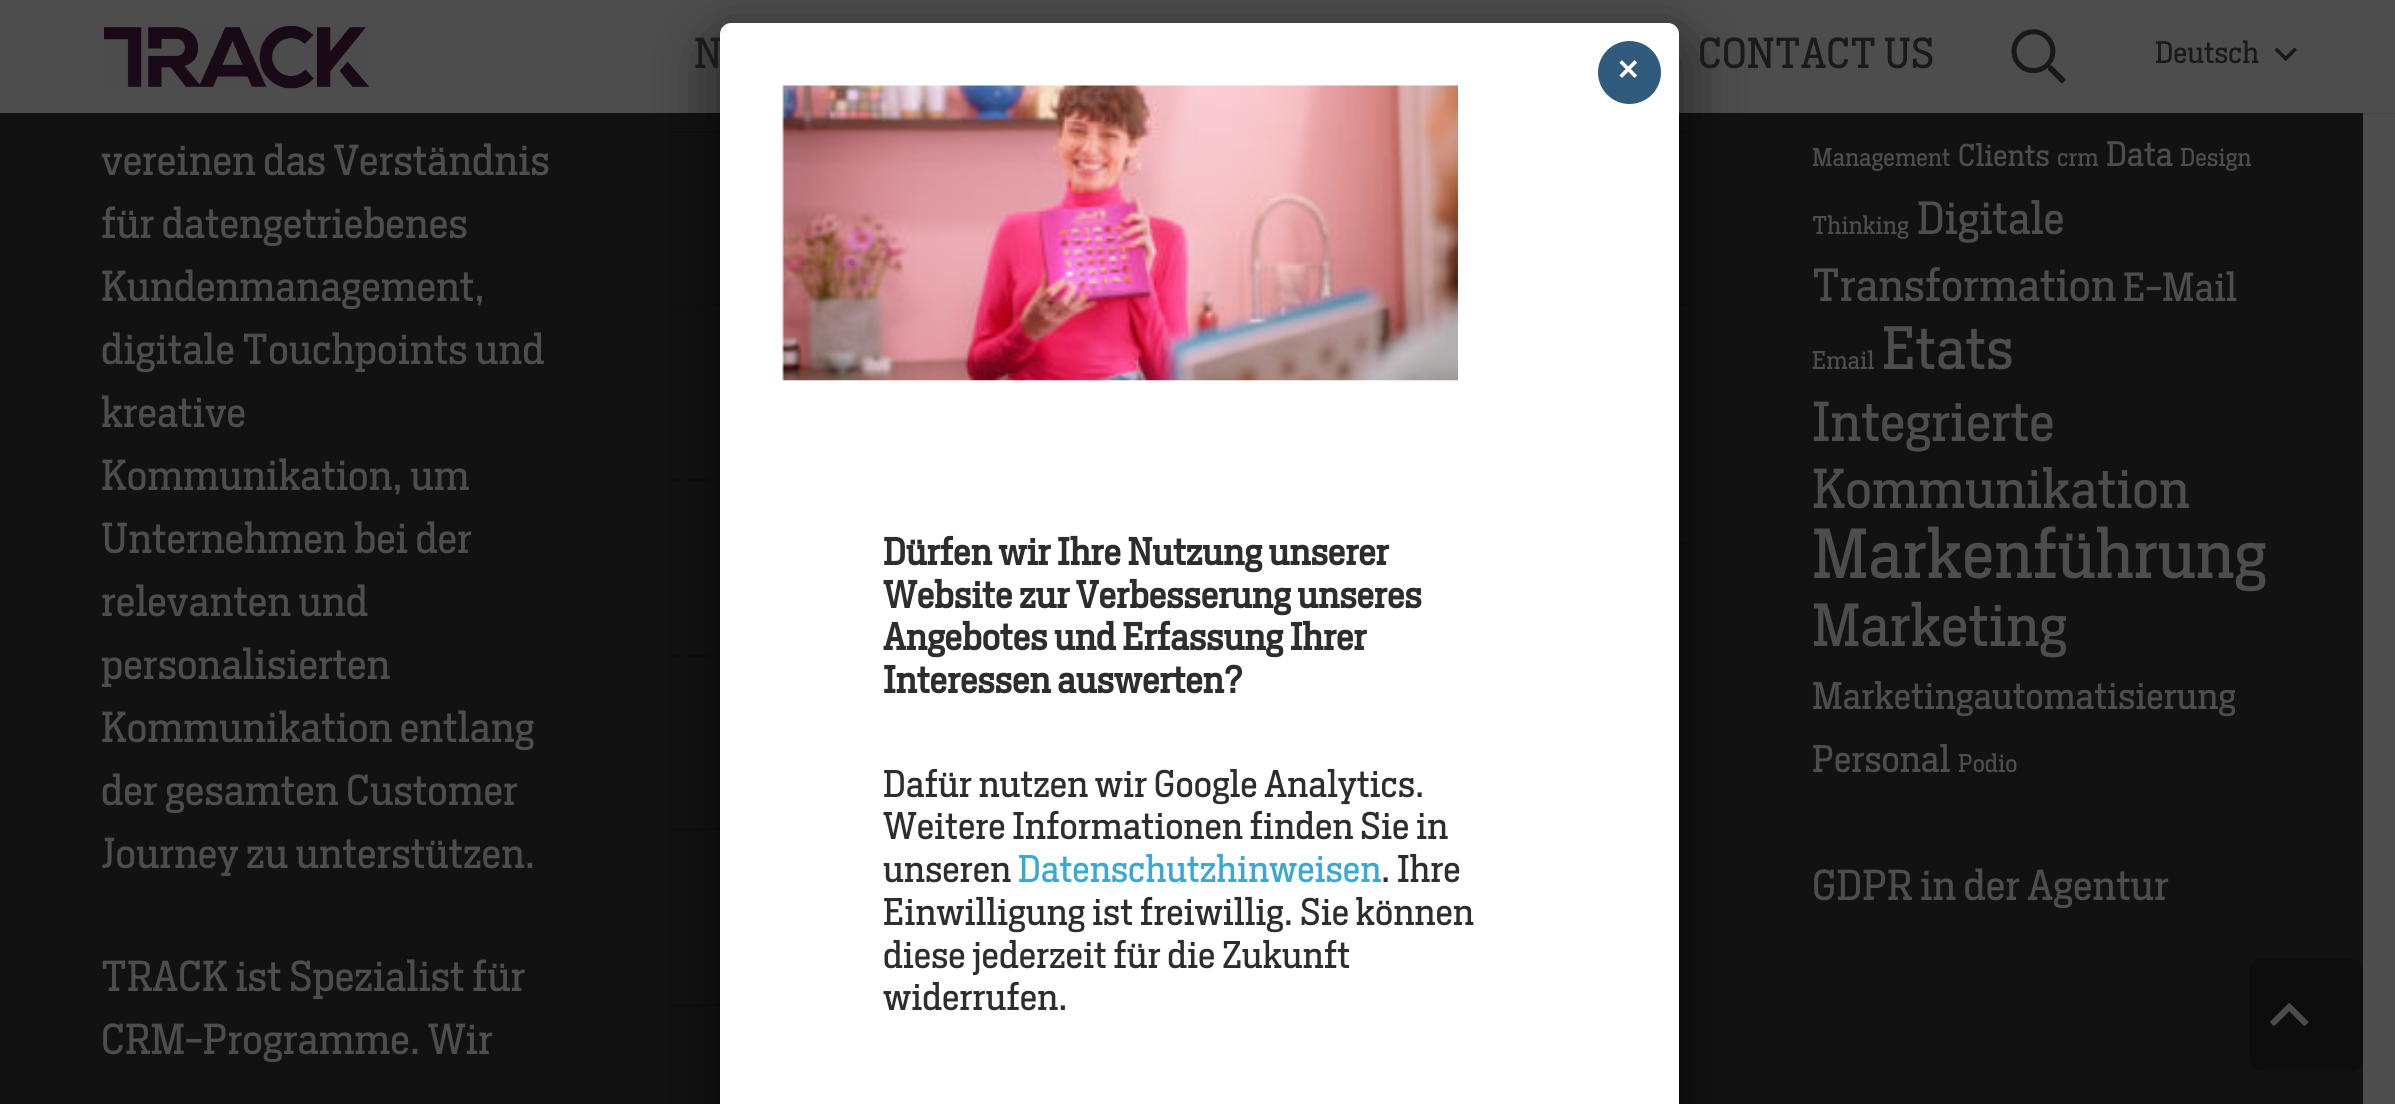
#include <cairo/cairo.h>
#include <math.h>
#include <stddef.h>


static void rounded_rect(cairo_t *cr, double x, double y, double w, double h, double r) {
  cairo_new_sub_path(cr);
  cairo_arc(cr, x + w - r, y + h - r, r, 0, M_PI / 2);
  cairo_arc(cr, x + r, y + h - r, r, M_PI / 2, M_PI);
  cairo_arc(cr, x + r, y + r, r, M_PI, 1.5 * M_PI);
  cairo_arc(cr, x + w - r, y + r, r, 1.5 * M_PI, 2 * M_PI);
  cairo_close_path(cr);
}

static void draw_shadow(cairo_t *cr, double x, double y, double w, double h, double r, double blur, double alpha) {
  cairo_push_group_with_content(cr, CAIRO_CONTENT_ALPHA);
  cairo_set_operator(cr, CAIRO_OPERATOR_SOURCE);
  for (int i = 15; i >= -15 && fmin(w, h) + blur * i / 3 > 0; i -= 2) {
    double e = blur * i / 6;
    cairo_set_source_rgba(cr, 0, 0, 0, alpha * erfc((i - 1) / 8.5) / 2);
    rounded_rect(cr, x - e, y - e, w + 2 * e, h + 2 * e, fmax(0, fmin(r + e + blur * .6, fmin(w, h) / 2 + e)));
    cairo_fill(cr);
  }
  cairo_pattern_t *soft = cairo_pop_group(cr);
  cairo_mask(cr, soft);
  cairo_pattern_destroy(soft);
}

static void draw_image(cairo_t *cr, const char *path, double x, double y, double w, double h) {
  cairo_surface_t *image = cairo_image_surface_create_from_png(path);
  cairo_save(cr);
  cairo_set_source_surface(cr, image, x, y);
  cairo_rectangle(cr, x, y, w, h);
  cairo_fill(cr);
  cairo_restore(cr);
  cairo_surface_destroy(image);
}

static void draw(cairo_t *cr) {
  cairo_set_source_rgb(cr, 77 / 255.0, 77 / 255.0, 77 / 255.0);
  cairo_paint(cr);
  cairo_set_source_rgba(cr, 0, 0, 0, 0.08);
  cairo_rectangle(cr, 2363, 113, 32, 2);
  cairo_fill(cr);
  draw_image(cr, "images/1.png", 104, 26, 265, 63);
  draw_image(cr, "images/2.png", 2011, 29, 55, 55);
  draw_image(cr, "images/3.png", 2274, 47, 23, 14);
  cairo_set_source_rgb(cr, 18 / 255.0, 18 / 255.0, 18 / 255.0);
  cairo_rectangle(cr, 0, 113, 2363, 991);
  cairo_fill(cr);
  cairo_set_source_rgb(cr, 15 / 255.0, 15 / 255.0, 15 / 255.0);
  cairo_rectangle(cr, 671, 131, 49, 2);
  cairo_fill(cr);
  cairo_rectangle(cr, 671, 304, 49, 2);
  cairo_fill(cr);
  cairo_rectangle(cr, 671, 479, 49, 2);
  cairo_fill(cr);
  cairo_rectangle(cr, 671, 655, 49, 2);
  cairo_fill(cr);
  cairo_rectangle(cr, 671, 828, 49, 2);
  cairo_fill(cr);
  cairo_rectangle(cr, 671, 1004, 49, 2);
  cairo_fill(cr);
  cairo_rectangle(cr, 1679, 131, 13, 2);
  cairo_fill(cr);
  cairo_rectangle(cr, 1679, 304, 13, 2);
  cairo_fill(cr);
  cairo_rectangle(cr, 1679, 542, 13, 2);
  cairo_fill(cr);
  cairo_set_source_rgb(cr, 2 / 255.0, 2 / 255.0, 2 / 255.0);
  draw_shadow(cr, 711, 36, 977, 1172, 20, 28, 0.5);
  cairo_set_source_rgb(cr, 13 / 255.0, 13 / 255.0, 13 / 255.0);
  rounded_rect(cr, 2250, 959, 113, 112, 11);
  cairo_fill(cr);
  draw_image(cr, "images/5.png", 2270, 1003, 39, 23);
  cairo_select_font_face(cr, "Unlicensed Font", CAIRO_FONT_SLANT_NORMAL, CAIRO_FONT_WEIGHT_NORMAL);
  cairo_set_font_size(cr, 40.5);
  cairo_set_source_rgb(cr, 26 / 255.0, 26 / 255.0, 26 / 255.0);
  cairo_move_to(cr, 694, 68);
  cairo_show_text(cr, "N");
  cairo_move_to(cr, 1698, 68);
  cairo_show_text(cr, "CONTACT US");
  cairo_set_font_size(cr, 29);
  cairo_move_to(cr, 2155, 63);
  cairo_show_text(cr, "Deutsch");
  cairo_set_source_rgb(cr, 1, 1, 1);
  cairo_new_path(cr);
  cairo_move_to(cr, 731, 23);
  cairo_line_to(cr, 1668, 23);
  cairo_curve_to(cr, 1674, 23, 1679, 28, 1679, 34);
  cairo_line_to(cr, 1679, 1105);
  cairo_line_to(cr, 720, 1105);
  cairo_line_to(cr, 720, 34);
  cairo_curve_to(cr, 720, 28, 725, 23, 731, 23);
  cairo_close_path(cr);
  cairo_fill(cr);
  cairo_set_source_rgb(cr, 49 / 255.0, 91 / 255.0, 124 / 255.0);
  cairo_arc(cr, 1629.5, 72.5, 31.5, 0, 2 * M_PI);
  cairo_fill(cr);
  cairo_set_font_size(cr, 45);
  cairo_set_source_rgb(cr, 1, 1, 1);
  cairo_move_to(cr, 1616, 86);
  cairo_show_text(cr, "×");
  draw_image(cr, "images/4.png", 782, 85, 676, 296);
  cairo_select_font_face(cr, "Unlicensed Font", CAIRO_FONT_SLANT_NORMAL, CAIRO_FONT_WEIGHT_BOLD);
  cairo_set_font_size(cr, 36);
  cairo_set_source_rgb(cr, 45 / 255.0, 45 / 255.0, 45 / 255.0);
  cairo_move_to(cr, 883, 565);
  cairo_show_text(cr, "Dürfen wir Ihre Nutzung unserer");
  cairo_move_to(cr, 883, 608);
  cairo_show_text(cr, "Website zur Verbesserung unseres");
  cairo_move_to(cr, 883, 650);
  cairo_show_text(cr, "Angebotes und Erfassung Ihrer");
  cairo_move_to(cr, 883, 693);
  cairo_show_text(cr, "Interessen auswerten?");
  cairo_select_font_face(cr, "Unlicensed Font", CAIRO_FONT_SLANT_NORMAL, CAIRO_FONT_WEIGHT_NORMAL);
  cairo_move_to(cr, 883, 797);
  cairo_show_text(cr, "Dafür nutzen wir Google Analytics.");
  cairo_move_to(cr, 883, 839);
  cairo_show_text(cr, "Weitere Informationen finden Sie in");
  cairo_move_to(cr, 883, 882);
  cairo_show_text(cr, "unseren");
  cairo_set_source_rgb(cr, 58 / 255.0, 168 / 255.0, 208 / 255.0);
  cairo_move_to(cr, 1018, 882);
  cairo_show_text(cr, "Datenschutzhinweisen");
  cairo_set_source_rgb(cr, 45 / 255.0, 45 / 255.0, 45 / 255.0);
  cairo_move_to(cr, 1381, 882);
  cairo_show_text(cr, ". Ihre");
  cairo_move_to(cr, 883, 925);
  cairo_show_text(cr, "Einwilligung ist freiwillig. Sie können");
  cairo_move_to(cr, 883, 968);
  cairo_show_text(cr, "diese jederzeit für die Zukunft");
  cairo_move_to(cr, 883, 1010);
  cairo_show_text(cr, "widerrufen.");
  cairo_set_font_size(cr, 40.5);
  cairo_set_source_rgb(cr, 77 / 255.0, 77 / 255.0, 77 / 255.0);
  cairo_move_to(cr, 101, 175);
  cairo_show_text(cr, "vereinen das Verständnis");
  cairo_move_to(cr, 101, 238);
  cairo_show_text(cr, "für datengetriebenes");
  cairo_move_to(cr, 101, 301);
  cairo_show_text(cr, "Kundenmanagement,");
  cairo_move_to(cr, 101, 364);
  cairo_show_text(cr, "digitale Touchpoints und");
  cairo_move_to(cr, 101, 427);
  cairo_show_text(cr, "kreative");
  cairo_move_to(cr, 101, 490);
  cairo_show_text(cr, "Kommunikation, um");
  cairo_move_to(cr, 101, 553);
  cairo_show_text(cr, "Unternehmen bei der");
  cairo_move_to(cr, 101, 616);
  cairo_show_text(cr, "relevanten und");
  cairo_move_to(cr, 101, 679);
  cairo_show_text(cr, "personalisierten");
  cairo_move_to(cr, 101, 742);
  cairo_show_text(cr, "Kommunikation entlang");
  cairo_move_to(cr, 101, 805);
  cairo_show_text(cr, "der gesamten Customer");
  cairo_move_to(cr, 101, 868);
  cairo_show_text(cr, "Journey zu unterstützen.");
  cairo_move_to(cr, 101, 991);
  cairo_show_text(cr, "TRACK ist Spezialist für");
  cairo_move_to(cr, 101, 1054);
  cairo_show_text(cr, "CRM-Programme. Wir");
  cairo_set_font_size(cr, 24);
  cairo_move_to(cr, 1812, 166);
  cairo_show_text(cr, "Management");
  cairo_set_font_size(cr, 29.5);
  cairo_move_to(cr, 1958, 166);
  cairo_show_text(cr, "Clients");
  cairo_set_font_size(cr, 24);
  cairo_move_to(cr, 2057, 166);
  cairo_show_text(cr, "crm");
  cairo_set_font_size(cr, 33);
  cairo_move_to(cr, 2106, 166);
  cairo_show_text(cr, "Data");
  cairo_set_font_size(cr, 24);
  cairo_move_to(cr, 2180, 166);
  cairo_show_text(cr, "Design");
  cairo_move_to(cr, 1812, 234);
  cairo_show_text(cr, "Thinking");
  cairo_set_font_size(cr, 43.5);
  cairo_move_to(cr, 1917, 234);
  cairo_show_text(cr, "Digitale");
  cairo_move_to(cr, 1812, 301);
  cairo_show_text(cr, "Transformation");
  cairo_set_font_size(cr, 38);
  cairo_move_to(cr, 2123, 301);
  cairo_show_text(cr, "E-Mail");
  cairo_set_font_size(cr, 24);
  cairo_move_to(cr, 1812, 369);
  cairo_show_text(cr, "Email");
  cairo_set_font_size(cr, 57);
  cairo_move_to(cr, 1882, 369);
  cairo_show_text(cr, "Etats");
  cairo_set_font_size(cr, 52.5);
  cairo_move_to(cr, 1812, 441);
  cairo_show_text(cr, "Integrierte");
  cairo_move_to(cr, 1812, 508);
  cairo_show_text(cr, "Kommunikation");
  cairo_set_font_size(cr, 66);
  cairo_move_to(cr, 1812, 578);
  cairo_show_text(cr, "Markenführung");
  cairo_set_font_size(cr, 56.75);
  cairo_move_to(cr, 1812, 646);
  cairo_show_text(cr, "Marketing");
  cairo_set_font_size(cr, 35.9);
  cairo_move_to(cr, 1812, 709);
  cairo_show_text(cr, "Marketingautomatisierung");
  cairo_move_to(cr, 1812, 772);
  cairo_show_text(cr, "Personal");
  cairo_set_font_size(cr, 24);
  cairo_move_to(cr, 1958, 772);
  cairo_show_text(cr, "Podio");
  cairo_set_font_size(cr, 40.5);
  cairo_move_to(cr, 1812, 900);
  cairo_show_text(cr, "GDPR in der Agentur");
}

int main(void) {
  cairo_surface_t *surface = cairo_image_surface_create(CAIRO_FORMAT_RGB24, 2395, 1104);
  cairo_t *cr = cairo_create(surface);
  cairo_font_options_t *options = cairo_font_options_create();
  cairo_font_options_set_hint_metrics(options, CAIRO_HINT_METRICS_OFF);
  cairo_font_options_set_hint_style(options, CAIRO_HINT_STYLE_NONE);
  cairo_set_font_options(cr, options);
  cairo_set_miter_limit(cr, 4);
  draw(cr);
  cairo_surface_write_to_png(surface, "out.png");
  cairo_font_options_destroy(options);
  cairo_destroy(cr);
  cairo_surface_destroy(surface);
  return 0;
}
